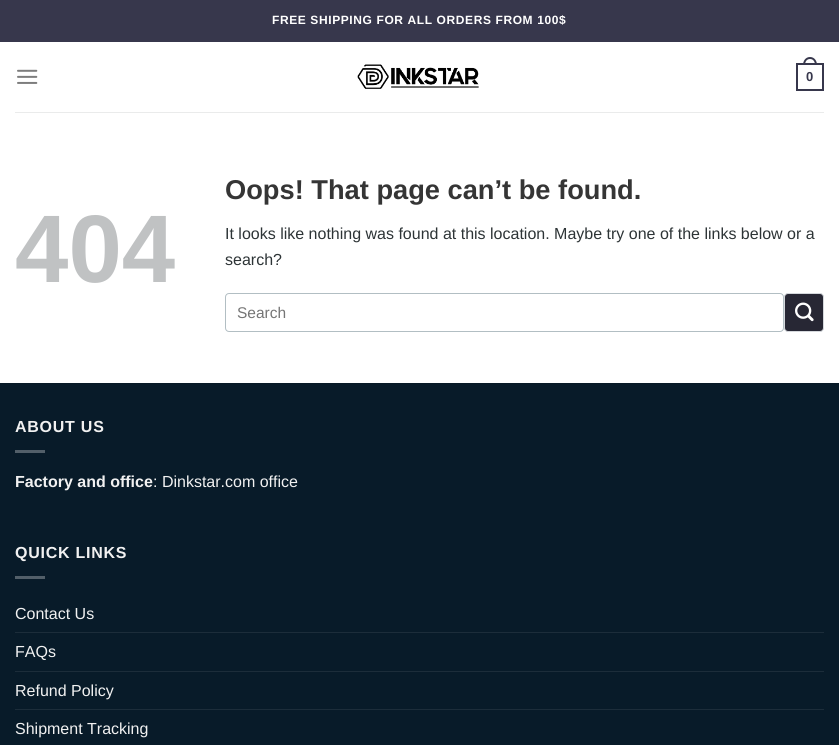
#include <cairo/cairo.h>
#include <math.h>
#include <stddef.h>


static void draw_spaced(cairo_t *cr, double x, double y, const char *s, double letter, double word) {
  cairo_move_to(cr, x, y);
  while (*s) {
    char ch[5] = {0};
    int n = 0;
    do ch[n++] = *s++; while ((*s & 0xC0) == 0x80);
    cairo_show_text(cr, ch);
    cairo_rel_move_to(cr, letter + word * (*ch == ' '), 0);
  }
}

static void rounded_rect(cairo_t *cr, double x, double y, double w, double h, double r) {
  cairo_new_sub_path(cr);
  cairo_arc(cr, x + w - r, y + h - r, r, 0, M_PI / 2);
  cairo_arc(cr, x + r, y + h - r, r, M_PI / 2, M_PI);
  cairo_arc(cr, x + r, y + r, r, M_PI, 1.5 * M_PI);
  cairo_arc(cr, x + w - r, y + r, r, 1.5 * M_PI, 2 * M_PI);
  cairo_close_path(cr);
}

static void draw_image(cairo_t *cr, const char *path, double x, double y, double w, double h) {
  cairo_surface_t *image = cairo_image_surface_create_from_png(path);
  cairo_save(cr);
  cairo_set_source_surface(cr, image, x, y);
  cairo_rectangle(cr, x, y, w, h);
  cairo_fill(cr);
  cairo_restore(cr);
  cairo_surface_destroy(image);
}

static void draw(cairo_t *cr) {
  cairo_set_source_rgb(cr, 1, 1, 1);
  cairo_paint(cr);
  cairo_set_source_rgb(cr, 55 / 255.0, 55 / 255.0, 76 / 255.0);
  cairo_rectangle(cr, 0, 0, 839, 42);
  cairo_fill(cr);
  draw_image(cr, "images/1.png", 17, 69, 21, 15);
  draw_image(cr, "images/2.png", 357, 64, 122, 25);
  cairo_rectangle(cr, 797, 64, 26, 26);
  cairo_stroke(cr);
  cairo_set_fill_rule(cr, CAIRO_FILL_RULE_EVEN_ODD);
  cairo_new_path(cr);
  cairo_move_to(cr, 810, 57);
  cairo_curve_to(cr, 814.5, 57, 817, 61, 817, 65);
  cairo_line_to(cr, 803, 65);
  cairo_curve_to(cr, 803, 61, 805.5, 57, 810, 57);
  cairo_close_path(cr);
  cairo_move_to(cr, 810, 59);
  cairo_curve_to(cr, 813.5, 59, 815, 62, 815, 65);
  cairo_line_to(cr, 805, 65);
  cairo_curve_to(cr, 805, 62, 806.5, 59, 810, 59);
  cairo_close_path(cr);
  cairo_fill(cr);
  cairo_set_source_rgb(cr, 234 / 255.0, 235 / 255.0, 235 / 255.0);
  cairo_rectangle(cr, 15, 112, 809, 1);
  cairo_fill(cr);
  rounded_rect(cr, 225.5, 293.5, 558, 38, 3.5);
  cairo_set_source_rgb(cr, 178 / 255.0, 190 / 255.0, 195 / 255.0);
  cairo_set_line_width(cr, 1);
  cairo_stroke(cr);
  cairo_set_source_rgb(cr, 39 / 255.0, 39 / 255.0, 52 / 255.0);
  rounded_rect(cr, 784.5, 293.5, 39, 38, 3.5);
  cairo_fill_preserve(cr);
  cairo_set_source_rgb(cr, 213 / 255.0, 216 / 255.0, 220 / 255.0);
  cairo_stroke(cr);
  draw_image(cr, "images/3.png", 795, 302, 19, 20);
  cairo_set_source_rgb(cr, 8 / 255.0, 27 / 255.0, 41 / 255.0);
  cairo_rectangle(cr, 0, 384, 839, 361);
  cairo_fill(cr);
  cairo_set_source_rgb(cr, 8 / 255.0, 26 / 255.0, 39 / 255.0);
  cairo_rectangle(cr, 0, 383, 839, 1);
  cairo_fill(cr);
  cairo_set_source_rgb(cr, 82 / 255.0, 95 / 255.0, 105 / 255.0);
  cairo_rectangle(cr, 15, 450, 30, 3);
  cairo_fill(cr);
  cairo_rectangle(cr, 15, 576, 30, 3);
  cairo_fill(cr);
  cairo_set_source_rgb(cr, 28 / 255.0, 45 / 255.0, 58 / 255.0);
  cairo_rectangle(cr, 15, 632, 809, 1);
  cairo_fill(cr);
  cairo_rectangle(cr, 15, 671, 809, 1);
  cairo_fill(cr);
  cairo_rectangle(cr, 15, 709, 809, 1);
  cairo_fill(cr);
  cairo_select_font_face(cr, "Liberation Sans", CAIRO_FONT_SLANT_NORMAL, CAIRO_FONT_WEIGHT_BOLD);
  cairo_set_font_size(cr, 12);
  cairo_set_source_rgb(cr, 1, 1, 1);
  draw_spaced(cr, 272, 24, "FREE SHIPPING FOR ALL ORDERS FROM 100$", 0.6, 0);
  cairo_set_font_size(cr, 13);
  cairo_set_source_rgb(cr, 55 / 255.0, 55 / 255.0, 76 / 255.0);
  cairo_move_to(cr, 806, 81);
  cairo_show_text(cr, "0");
  cairo_set_font_size(cr, 96);
  cairo_set_source_rgb(cr, 192 / 255.0, 194 / 255.0, 195 / 255.0);
  cairo_move_to(cr, 15, 282);
  cairo_show_text(cr, "404");
  cairo_set_font_size(cr, 27.25);
  cairo_set_source_rgb(cr, 53 / 255.0, 53 / 255.0, 53 / 255.0);
  cairo_move_to(cr, 225, 199);
  cairo_show_text(cr, "Oops! That page can’t be found.");
  cairo_select_font_face(cr, "Liberation Sans", CAIRO_FONT_SLANT_NORMAL, CAIRO_FONT_WEIGHT_NORMAL);
  cairo_set_font_size(cr, 16);
  cairo_set_source_rgb(cr, 45 / 255.0, 52 / 255.0, 54 / 255.0);
  cairo_move_to(cr, 225, 239);
  cairo_show_text(cr, "It looks like nothing was found at this location. Maybe try one of the links below or a");
  cairo_move_to(cr, 225, 265);
  cairo_show_text(cr, "search?");
  cairo_set_font_size(cr, 15.5);
  cairo_set_source_rgb(cr, 117 / 255.0, 117 / 255.0, 117 / 255.0);
  cairo_move_to(cr, 237, 318);
  cairo_show_text(cr, "Search");
  cairo_select_font_face(cr, "Liberation Sans", CAIRO_FONT_SLANT_NORMAL, CAIRO_FONT_WEIGHT_BOLD);
  cairo_set_font_size(cr, 16);
  cairo_set_source_rgb(cr, 241 / 255.0, 241 / 255.0, 241 / 255.0);
  draw_spaced(cr, 15, 432, "ABOUT US", 0.75, 0);
  cairo_move_to(cr, 15, 487);
  cairo_show_text(cr, "Factory and office");
  cairo_select_font_face(cr, "Liberation Sans", CAIRO_FONT_SLANT_NORMAL, CAIRO_FONT_WEIGHT_NORMAL);
  cairo_move_to(cr, 153, 487);
  cairo_show_text(cr, ": Dinkstar.com office");
  cairo_select_font_face(cr, "Liberation Sans", CAIRO_FONT_SLANT_NORMAL, CAIRO_FONT_WEIGHT_BOLD);
  draw_spaced(cr, 15, 558, "QUICK LINKS", 0.75, 0);
  cairo_select_font_face(cr, "Liberation Sans", CAIRO_FONT_SLANT_NORMAL, CAIRO_FONT_WEIGHT_NORMAL);
  cairo_move_to(cr, 15, 619);
  cairo_show_text(cr, "Contact Us");
  cairo_move_to(cr, 15, 657);
  cairo_show_text(cr, "FAQs");
  cairo_move_to(cr, 15, 696);
  cairo_show_text(cr, "Refund Policy");
  cairo_move_to(cr, 15, 734);
  cairo_show_text(cr, "Shipment Tracking");
}

int main(void) {
  cairo_surface_t *surface = cairo_image_surface_create(CAIRO_FORMAT_RGB24, 839, 745);
  cairo_t *cr = cairo_create(surface);
  cairo_font_options_t *options = cairo_font_options_create();
  cairo_font_options_set_hint_metrics(options, CAIRO_HINT_METRICS_OFF);
  cairo_font_options_set_hint_style(options, CAIRO_HINT_STYLE_NONE);
  cairo_set_font_options(cr, options);
  cairo_set_miter_limit(cr, 4);
  draw(cr);
  cairo_surface_write_to_png(surface, "out.png");
  cairo_font_options_destroy(options);
  cairo_destroy(cr);
  cairo_surface_destroy(surface);
  return 0;
}
